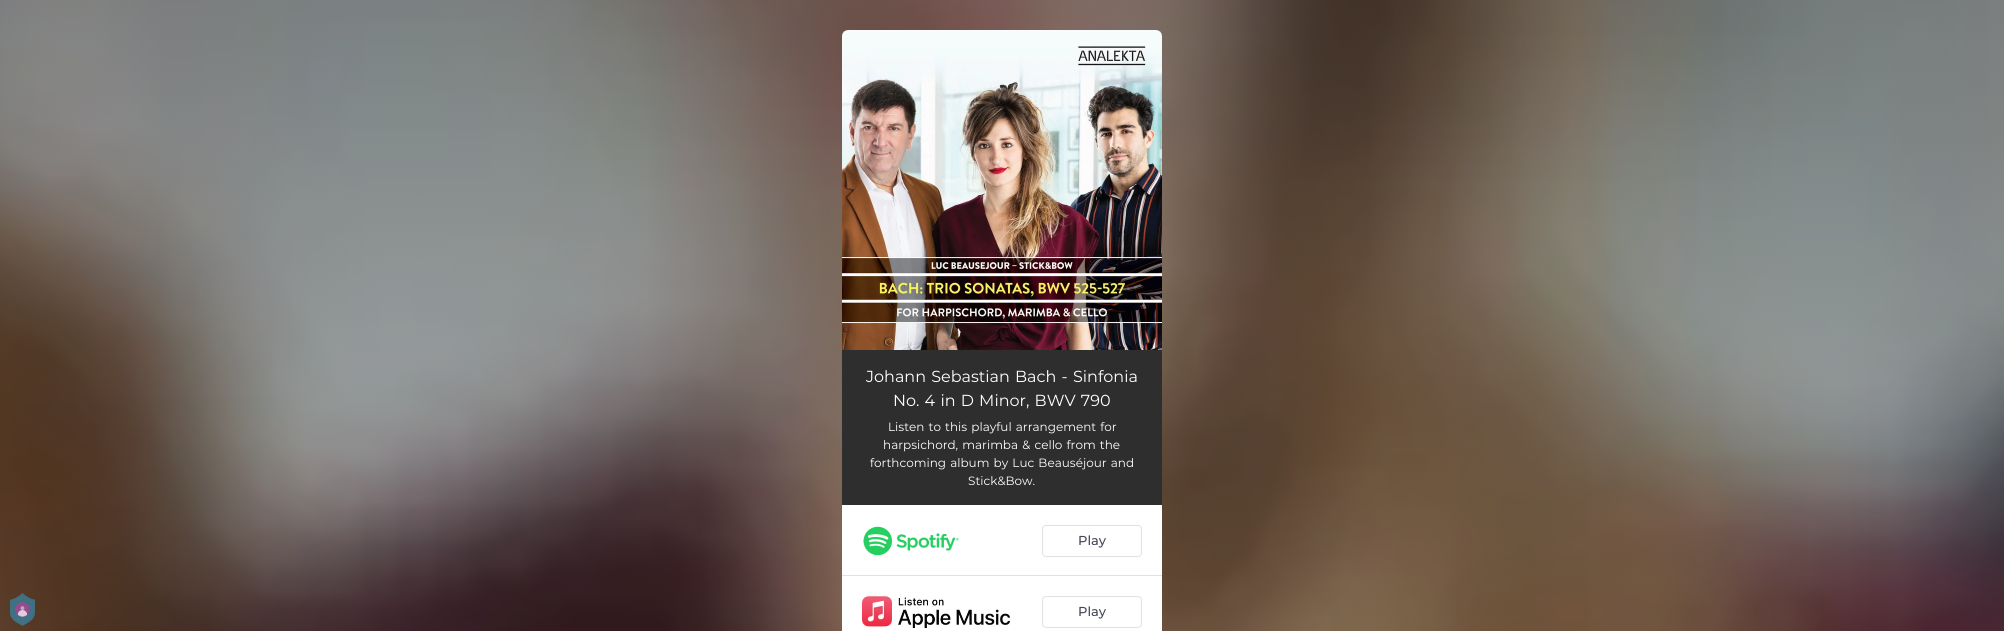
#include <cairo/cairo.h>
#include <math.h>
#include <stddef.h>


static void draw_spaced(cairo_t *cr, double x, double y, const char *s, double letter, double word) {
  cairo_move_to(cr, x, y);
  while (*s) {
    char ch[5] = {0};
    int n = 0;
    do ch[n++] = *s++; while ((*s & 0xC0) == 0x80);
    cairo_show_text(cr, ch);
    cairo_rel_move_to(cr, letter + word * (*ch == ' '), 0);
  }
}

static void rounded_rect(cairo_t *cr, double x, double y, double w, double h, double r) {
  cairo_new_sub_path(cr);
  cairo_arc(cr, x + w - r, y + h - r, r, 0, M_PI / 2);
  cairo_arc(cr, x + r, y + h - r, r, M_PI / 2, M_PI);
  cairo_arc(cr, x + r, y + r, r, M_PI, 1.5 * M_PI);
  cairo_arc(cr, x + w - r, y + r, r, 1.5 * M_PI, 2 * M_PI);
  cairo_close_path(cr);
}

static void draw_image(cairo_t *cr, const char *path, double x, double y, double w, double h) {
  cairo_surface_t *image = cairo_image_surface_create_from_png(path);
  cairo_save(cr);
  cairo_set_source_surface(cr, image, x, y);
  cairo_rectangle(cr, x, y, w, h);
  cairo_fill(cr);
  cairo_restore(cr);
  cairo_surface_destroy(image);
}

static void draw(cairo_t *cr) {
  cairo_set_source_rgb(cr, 1, 1, 1);
  cairo_paint(cr);
  draw_image(cr, "images/2.png", 0, 0, 2004, 631);
  draw_image(cr, "images/1.png", 10, 593, 25, 33);
  draw_image(cr, "images/3.png", 842, 30, 320, 320);
  cairo_set_source_rgb(cr, 46 / 255.0, 46 / 255.0, 46 / 255.0);
  cairo_rectangle(cr, 842, 350, 320, 155);
  cairo_fill(cr);
  cairo_set_source_rgb(cr, 1, 1, 1);
  cairo_rectangle(cr, 842, 505, 320, 126);
  cairo_fill(cr);
  cairo_set_source_rgb(cr, 225 / 255.0, 225 / 255.0, 228 / 255.0);
  cairo_rectangle(cr, 842, 575, 320, 1);
  cairo_fill(cr);
  draw_image(cr, "images/4.png", 863, 526, 96, 30);
  rounded_rect(cr, 1042.5, 525.5, 99, 31, 3.5);
  cairo_set_line_width(cr, 1);
  cairo_stroke(cr);
  draw_image(cr, "images/5.png", 862, 596, 148, 32);
  rounded_rect(cr, 1042.5, 596.5, 99, 31, 3.5);
  cairo_stroke(cr);
  cairo_select_font_face(cr, "Montserrat", CAIRO_FONT_SLANT_NORMAL, CAIRO_FONT_WEIGHT_NORMAL);
  cairo_set_font_size(cr, 16);
  cairo_set_source_rgb(cr, 1, 1, 1);
  draw_spaced(cr, 866, 382, "Johann Sebastian Bach - Sinfonia", 0, 1);
  draw_spaced(cr, 893, 406, "No. 4 in D Minor, BWV 790", 0, 1);
  cairo_set_font_size(cr, 12);
  draw_spaced(cr, 888, 431, "Listen to this playful arrangement for", 0, 1);
  draw_spaced(cr, 883, 449, "harpsichord, marimba & cello from the", 0, 1);
  draw_spaced(cr, 870, 467, "forthcoming album by Luc Beauséjour and", 0, 1);
  cairo_move_to(cr, 968, 485);
  cairo_show_text(cr, "Stick&Bow.");
  cairo_select_font_face(cr, "Montserrat Medium", CAIRO_FONT_SLANT_NORMAL, CAIRO_FONT_WEIGHT_NORMAL);
  cairo_set_font_size(cr, 13);
  cairo_set_source_rgb(cr, 65 / 255.0, 71 / 255.0, 84 / 255.0);
  cairo_move_to(cr, 1078, 545);
  cairo_show_text(cr, "Play");
  cairo_move_to(cr, 1078, 616);
  cairo_show_text(cr, "Play");
}

int main(void) {
  cairo_surface_t *surface = cairo_image_surface_create(CAIRO_FORMAT_RGB24, 2004, 631);
  cairo_t *cr = cairo_create(surface);
  cairo_font_options_t *options = cairo_font_options_create();
  cairo_font_options_set_hint_metrics(options, CAIRO_HINT_METRICS_OFF);
  cairo_font_options_set_hint_style(options, CAIRO_HINT_STYLE_NONE);
  cairo_set_font_options(cr, options);
  cairo_set_miter_limit(cr, 4);
  draw(cr);
  cairo_surface_write_to_png(surface, "out.png");
  cairo_font_options_destroy(options);
  cairo_destroy(cr);
  cairo_surface_destroy(surface);
  return 0;
}
